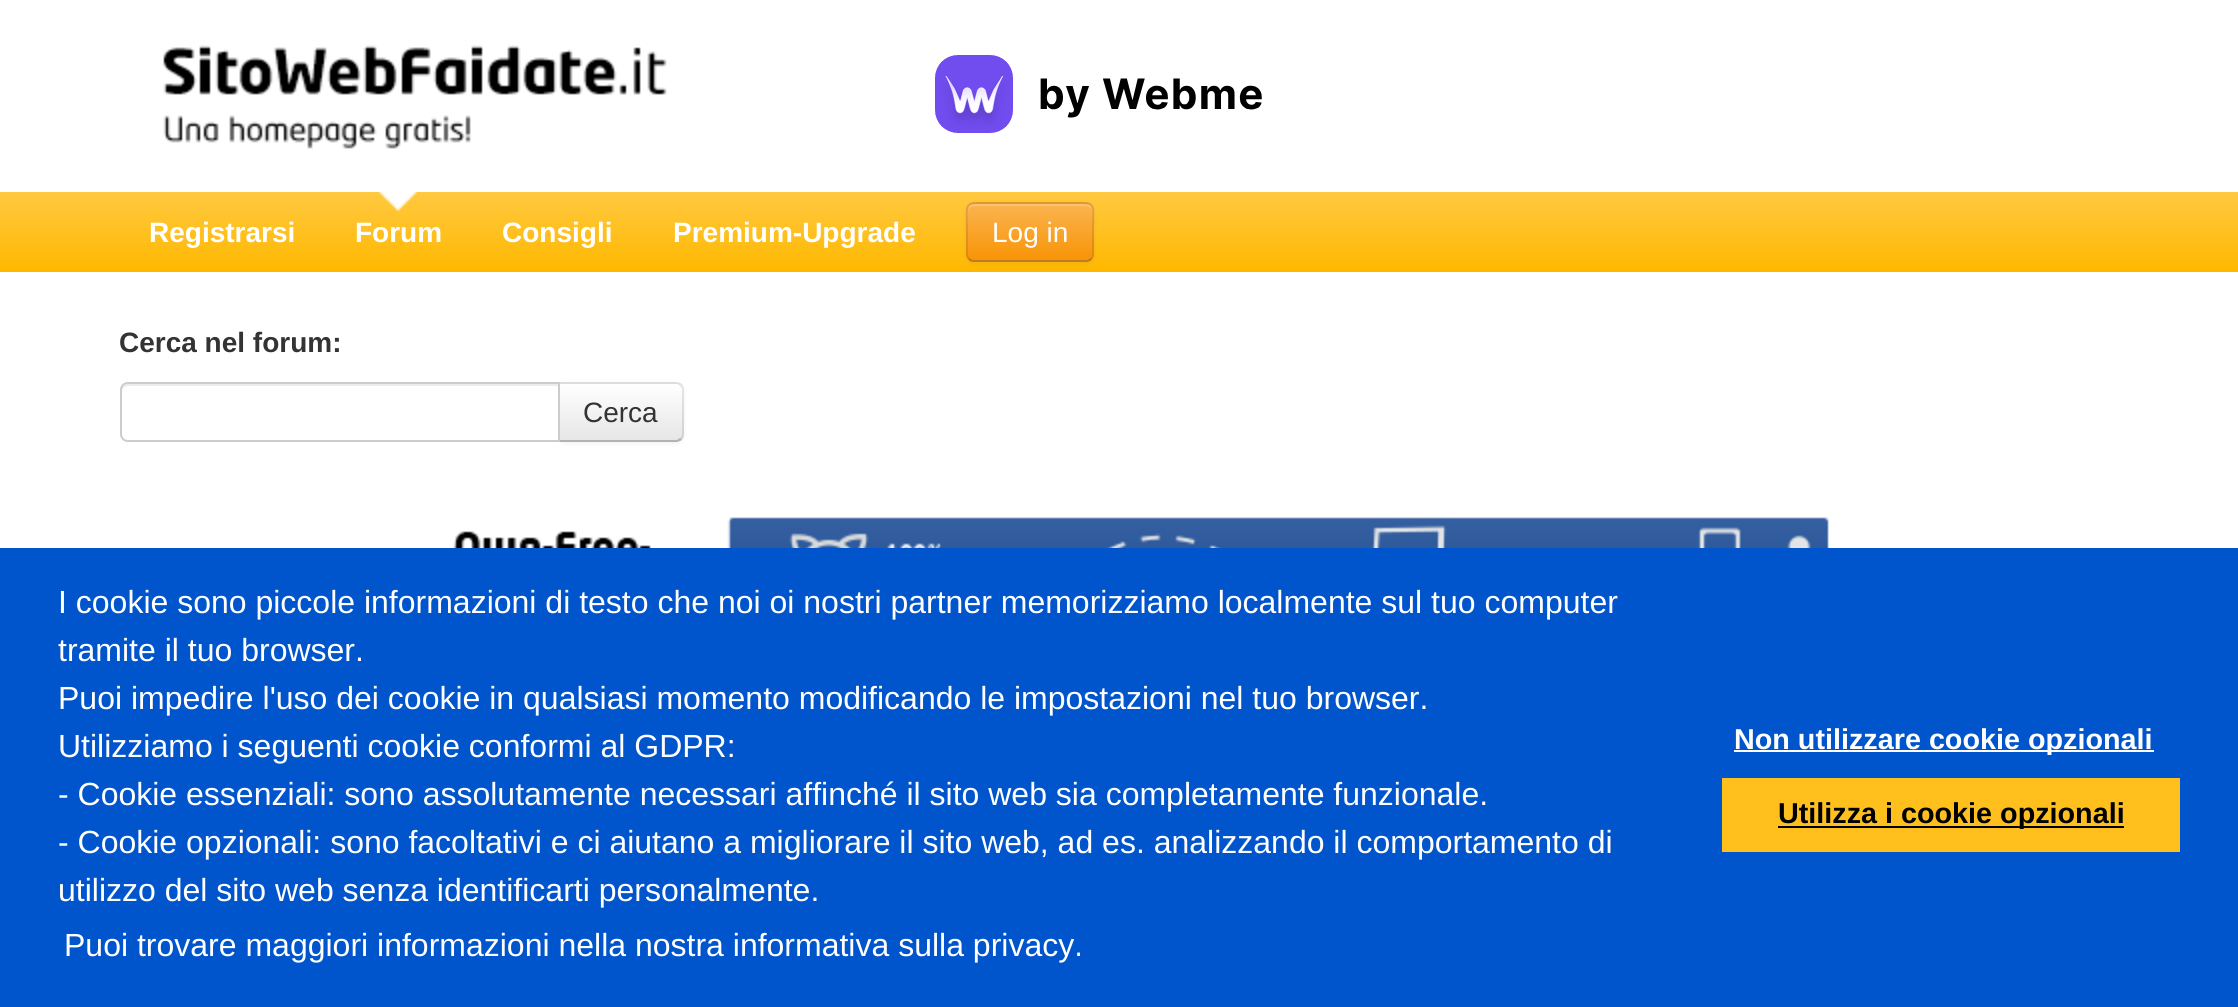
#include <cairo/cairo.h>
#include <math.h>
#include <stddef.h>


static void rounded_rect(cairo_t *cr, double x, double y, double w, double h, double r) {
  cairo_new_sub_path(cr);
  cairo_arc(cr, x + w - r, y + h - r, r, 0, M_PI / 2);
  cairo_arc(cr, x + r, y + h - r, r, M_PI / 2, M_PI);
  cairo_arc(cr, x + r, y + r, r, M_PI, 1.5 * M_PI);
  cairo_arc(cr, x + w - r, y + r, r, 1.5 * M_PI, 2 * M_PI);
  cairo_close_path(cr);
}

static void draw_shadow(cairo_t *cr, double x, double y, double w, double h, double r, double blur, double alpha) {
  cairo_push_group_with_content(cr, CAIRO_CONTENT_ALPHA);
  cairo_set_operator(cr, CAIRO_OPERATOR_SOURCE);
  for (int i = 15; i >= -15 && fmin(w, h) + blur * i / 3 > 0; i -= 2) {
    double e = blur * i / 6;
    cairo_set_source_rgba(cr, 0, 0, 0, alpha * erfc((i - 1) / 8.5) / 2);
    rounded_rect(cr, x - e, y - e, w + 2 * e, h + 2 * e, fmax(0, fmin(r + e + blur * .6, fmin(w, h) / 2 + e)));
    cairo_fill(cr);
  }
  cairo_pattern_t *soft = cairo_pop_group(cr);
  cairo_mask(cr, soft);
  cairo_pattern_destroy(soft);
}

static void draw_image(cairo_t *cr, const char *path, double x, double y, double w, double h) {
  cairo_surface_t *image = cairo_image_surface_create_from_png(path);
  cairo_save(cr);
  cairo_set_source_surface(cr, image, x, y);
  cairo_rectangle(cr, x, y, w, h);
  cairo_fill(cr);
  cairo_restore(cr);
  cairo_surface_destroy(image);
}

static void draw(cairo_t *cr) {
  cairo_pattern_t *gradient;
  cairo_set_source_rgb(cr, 1, 1, 1);
  cairo_paint(cr);
  draw_image(cr, "images/1.png", 163, 45, 504, 104);
  draw_image(cr, "images/2.png", 934, 54, 328, 80);
  gradient = cairo_pattern_create_linear(1119, 192, 1119, 272);
  cairo_pattern_add_color_stop_rgba(gradient, 0, 1, 200 / 255.0, 64 / 255.0, 1);
  cairo_pattern_add_color_stop_rgba(gradient, 1, 1, 184 / 255.0, 0, 1);
  cairo_set_source(cr, gradient);
  cairo_pattern_destroy(gradient);
  cairo_rectangle(cr, 0, 192, 2238, 80);
  cairo_fill(cr);
  draw_image(cr, "images/3.png", 378, 192, 40, 20);
  cairo_set_source_rgb(cr, 0, 0, 0);
  draw_shadow(cr, 966, 204, 128, 60, 8, 2, 0.05);
  cairo_set_source_rgb(cr, 250 / 255.0, 167 / 255.0, 50 / 255.0);
  rounded_rect(cr, 966, 202, 128, 60, 8);
  cairo_fill(cr);
  cairo_save(cr);
  rounded_rect(cr, 966, 202, 128, 60, 8);
  cairo_clip(cr);
  gradient = cairo_pattern_create_linear(1030, 204, 1030, 260);
  cairo_pattern_add_color_stop_rgba(gradient, 0, 251 / 255.0, 180 / 255.0, 80 / 255.0, 1);
  cairo_pattern_add_color_stop_rgba(gradient, 1, 248 / 255.0, 148 / 255.0, 6 / 255.0, 1);
  cairo_set_source(cr, gradient);
  cairo_pattern_destroy(gradient);
  cairo_rectangle(cr, 966, 204, 128, 56);
  cairo_fill(cr);
  cairo_restore(cr);
  cairo_set_source_rgba(cr, 1, 1, 1, 0.2);
  cairo_new_path(cr);
  cairo_move_to(cr, 974, 206);
  cairo_line_to(cr, 1086, 206);
  cairo_curve_to(cr, 1089, 206, 1092, 209, 1092, 212);
  cairo_line_to(cr, 1092, 210);
  cairo_curve_to(cr, 1092, 207, 1089, 204, 1086, 204);
  cairo_line_to(cr, 974, 204);
  cairo_curve_to(cr, 971, 204, 968, 207, 968, 210);
  cairo_line_to(cr, 968, 212);
  cairo_curve_to(cr, 968, 209, 971, 206, 974, 206);
  cairo_close_path(cr);
  cairo_fill(cr);
  cairo_new_path(cr);
  cairo_move_to(cr, 1091, 259);
  cairo_curve_to(cr, 1089.5, 260.5, 1088, 261, 1086, 261);
  cairo_line_to(cr, 974, 261);
  cairo_curve_to(cr, 972, 261, 970.5, 260.5, 969, 259);
  cairo_set_source_rgba(cr, 0, 0, 0, 0.25);
  cairo_stroke(cr);
  cairo_new_path(cr);
  cairo_move_to(cr, 969, 259);
  cairo_curve_to(cr, 966, 256, 967, 250.5, 967, 246.5);
  cairo_line_to(cr, 967, 232);
  cairo_curve_to(cr, 967, 200.5, 962, 203, 992.5, 203);
  cairo_line_to(cr, 1067.5, 203);
  cairo_curve_to(cr, 1098, 203, 1093, 200.5, 1093, 232);
  cairo_line_to(cr, 1093, 246.5);
  cairo_curve_to(cr, 1093, 250.5, 1094, 256, 1091, 259);
  cairo_set_source_rgba(cr, 0, 0, 0, 0.1);
  cairo_stroke(cr);
  cairo_set_source_rgb(cr, 0, 0, 0);
  draw_shadow(cr, 558, 384, 126, 60, 8, 2, 0.05);
  cairo_set_source_rgb(cr, 245 / 255.0, 245 / 255.0, 245 / 255.0);
  cairo_new_path(cr);
  cairo_move_to(cr, 558, 382);
  cairo_line_to(cr, 676, 382);
  cairo_curve_to(cr, 680.5, 382, 684, 385.5, 684, 390);
  cairo_line_to(cr, 684, 434);
  cairo_curve_to(cr, 684, 438.5, 680.5, 442, 676, 442);
  cairo_line_to(cr, 558, 442);
  cairo_close_path(cr);
  cairo_fill(cr);
  cairo_save(cr);
  cairo_new_path(cr);
  cairo_move_to(cr, 558, 382);
  cairo_line_to(cr, 676, 382);
  cairo_curve_to(cr, 680.5, 382, 684, 385.5, 684, 390);
  cairo_line_to(cr, 684, 434);
  cairo_curve_to(cr, 684, 438.5, 680.5, 442, 676, 442);
  cairo_line_to(cr, 558, 442);
  cairo_close_path(cr);
  cairo_clip(cr);
  gradient = cairo_pattern_create_linear(621, 384, 621, 440);
  cairo_pattern_add_color_stop_rgba(gradient, 0, 1, 1, 1, 1);
  cairo_pattern_add_color_stop_rgba(gradient, 1, 230 / 255.0, 230 / 255.0, 230 / 255.0, 1);
  cairo_set_source(cr, gradient);
  cairo_pattern_destroy(gradient);
  cairo_rectangle(cr, 560, 384, 124, 56);
  cairo_fill(cr);
  cairo_restore(cr);
  cairo_set_source_rgba(cr, 0, 0, 0, 0.1);
  cairo_new_path(cr);
  cairo_move_to(cr, 558, 382);
  cairo_line_to(cr, 560, 384);
  cairo_line_to(cr, 677, 384);
  cairo_line_to(cr, 680, 386);
  cairo_line_to(cr, 682, 384);
  cairo_curve_to(cr, 680, 383, 678, 382, 676, 382);
  cairo_close_path(cr);
  cairo_fill(cr);
  cairo_new_path(cr);
  cairo_move_to(cr, 684, 434);
  cairo_line_to(cr, 684, 390);
  cairo_curve_to(cr, 684, 388, 683, 386, 682, 384);
  cairo_line_to(cr, 680, 386);
  cairo_curve_to(cr, 681, 387, 682, 388, 682, 390);
  cairo_line_to(cr, 682, 434);
  cairo_curve_to(cr, 682, 436, 681, 437, 680, 438);
  cairo_line_to(cr, 682, 440);
  cairo_curve_to(cr, 683, 438, 684, 436, 684, 434);
  cairo_close_path(cr);
  cairo_fill(cr);
  cairo_set_source_rgb(cr, 179 / 255.0, 179 / 255.0, 179 / 255.0);
  cairo_new_path(cr);
  cairo_move_to(cr, 676, 442);
  cairo_curve_to(cr, 678, 442, 680, 441, 682, 440);
  cairo_line_to(cr, 680, 438);
  cairo_line_to(cr, 677, 440);
  cairo_line_to(cr, 560, 440);
  cairo_line_to(cr, 558, 442);
  cairo_close_path(cr);
  cairo_fill(cr);
  cairo_set_source_rgb(cr, 1, 1, 1);
  cairo_new_path(cr);
  cairo_move_to(cr, 128, 382);
  cairo_line_to(cr, 560, 382);
  cairo_line_to(cr, 560, 442);
  cairo_line_to(cr, 128, 442);
  cairo_curve_to(cr, 123.5, 442, 120, 438.5, 120, 434);
  cairo_line_to(cr, 120, 390);
  cairo_curve_to(cr, 120, 385.5, 123.5, 382, 128, 382);
  cairo_close_path(cr);
  cairo_fill(cr);
  cairo_set_source_rgb(cr, 236 / 255.0, 236 / 255.0, 236 / 255.0);
  cairo_new_path(cr);
  cairo_move_to(cr, 128, 386);
  cairo_line_to(cr, 558, 386);
  cairo_line_to(cr, 558, 384);
  cairo_line_to(cr, 128, 384);
  cairo_curve_to(cr, 125, 384, 122, 387, 122, 390);
  cairo_line_to(cr, 122, 392);
  cairo_curve_to(cr, 122, 389, 125, 386, 128, 386);
  cairo_close_path(cr);
  cairo_fill(cr);
  cairo_new_path(cr);
  cairo_move_to(cr, 128, 383);
  cairo_line_to(cr, 559, 383);
  cairo_line_to(cr, 559, 441);
  cairo_line_to(cr, 128, 441);
  cairo_curve_to(cr, 124, 441, 121, 438, 121, 434);
  cairo_line_to(cr, 121, 390);
  cairo_curve_to(cr, 121, 386, 124, 383, 128, 383);
  cairo_close_path(cr);
  cairo_set_source_rgb(cr, 204 / 255.0, 204 / 255.0, 204 / 255.0);
  cairo_stroke(cr);
  draw_image(cr, "images/4.png", 425, 517, 1404, 31);
  cairo_set_source_rgb(cr, 0, 85 / 255.0, 204 / 255.0);
  cairo_rectangle(cr, 0, 548, 2238, 459);
  cairo_fill(cr);
  cairo_set_source_rgb(cr, 1, 1, 1);
  cairo_rectangle(cr, 1734, 750, 420, 2);
  cairo_fill(cr);
  cairo_set_source_rgb(cr, 1, 192 / 255.0, 29 / 255.0);
  cairo_rectangle(cr, 1722, 778, 458, 74);
  cairo_fill(cr);
  cairo_set_source_rgb(cr, 0, 0, 0);
  cairo_rectangle(cr, 1778, 826, 346, 2);
  cairo_fill(cr);
  cairo_select_font_face(cr, "Liberation Sans", CAIRO_FONT_SLANT_NORMAL, CAIRO_FONT_WEIGHT_BOLD);
  cairo_set_font_size(cr, 28);
  cairo_set_source_rgb(cr, 1, 1, 1);
  cairo_move_to(cr, 149, 242);
  cairo_show_text(cr, "Registrarsi");
  cairo_move_to(cr, 355, 242);
  cairo_show_text(cr, "Forum");
  cairo_move_to(cr, 502, 242);
  cairo_show_text(cr, "Consigli");
  cairo_move_to(cr, 673, 242);
  cairo_show_text(cr, "Premium-Upgrade");
  cairo_select_font_face(cr, "Liberation Sans", CAIRO_FONT_SLANT_NORMAL, CAIRO_FONT_WEIGHT_NORMAL);
  cairo_move_to(cr, 992, 242);
  cairo_show_text(cr, "Log in");
  cairo_select_font_face(cr, "Liberation Sans", CAIRO_FONT_SLANT_NORMAL, CAIRO_FONT_WEIGHT_BOLD);
  cairo_set_source_rgb(cr, 51 / 255.0, 51 / 255.0, 51 / 255.0);
  cairo_move_to(cr, 119, 352);
  cairo_show_text(cr, "Cerca nel forum:");
  cairo_select_font_face(cr, "Liberation Sans", CAIRO_FONT_SLANT_NORMAL, CAIRO_FONT_WEIGHT_NORMAL);
  cairo_move_to(cr, 583, 422);
  cairo_show_text(cr, "Cerca");
  cairo_set_font_size(cr, 32);
  cairo_set_source_rgb(cr, 1, 1, 1);
  cairo_move_to(cr, 58, 613);
  cairo_show_text(cr, "I cookie sono piccole informazioni di testo che noi oi nostri partner memorizziamo localmente sul tuo computer");
  cairo_move_to(cr, 58, 661);
  cairo_show_text(cr, "tramite il tuo browser.");
  cairo_move_to(cr, 58, 709);
  cairo_show_text(cr, "Puoi impedire l'uso dei cookie in qualsiasi momento modificando le impostazioni nel tuo browser.");
  cairo_move_to(cr, 58, 757);
  cairo_show_text(cr, "Utilizziamo i seguenti cookie conformi al GDPR:");
  cairo_move_to(cr, 58, 805);
  cairo_show_text(cr, "- Cookie essenziali: sono assolutamente necessari affinché il sito web sia completamente funzionale.");
  cairo_move_to(cr, 58, 853);
  cairo_show_text(cr, "- Cookie opzionali: sono facoltativi e ci aiutano a migliorare il sito web, ad es. analizzando il comportamento di");
  cairo_move_to(cr, 58, 901);
  cairo_show_text(cr, "utilizzo del sito web senza identificarti personalmente.");
  cairo_move_to(cr, 64, 956);
  cairo_show_text(cr, "Puoi trovare maggiori informazioni nella nostra informativa sulla privacy.");
  cairo_select_font_face(cr, "Liberation Sans", CAIRO_FONT_SLANT_NORMAL, CAIRO_FONT_WEIGHT_BOLD);
  cairo_set_font_size(cr, 28.75);
  cairo_move_to(cr, 1734, 749);
  cairo_show_text(cr, "Non utilizzare cookie opzionali");
  cairo_set_source_rgb(cr, 0, 0, 0);
  cairo_move_to(cr, 1778, 823);
  cairo_show_text(cr, "Utilizza i cookie opzionali");
}

int main(void) {
  cairo_surface_t *surface = cairo_image_surface_create(CAIRO_FORMAT_RGB24, 2238, 1007);
  cairo_t *cr = cairo_create(surface);
  cairo_font_options_t *options = cairo_font_options_create();
  cairo_font_options_set_hint_metrics(options, CAIRO_HINT_METRICS_OFF);
  cairo_font_options_set_hint_style(options, CAIRO_HINT_STYLE_NONE);
  cairo_set_font_options(cr, options);
  cairo_set_miter_limit(cr, 4);
  draw(cr);
  cairo_surface_write_to_png(surface, "out.png");
  cairo_font_options_destroy(options);
  cairo_destroy(cr);
  cairo_surface_destroy(surface);
  return 0;
}
